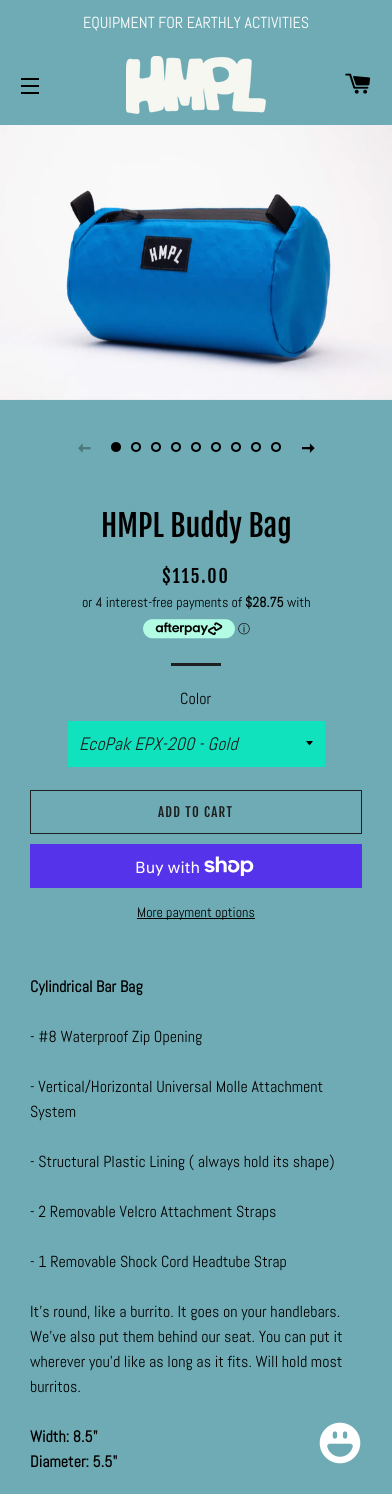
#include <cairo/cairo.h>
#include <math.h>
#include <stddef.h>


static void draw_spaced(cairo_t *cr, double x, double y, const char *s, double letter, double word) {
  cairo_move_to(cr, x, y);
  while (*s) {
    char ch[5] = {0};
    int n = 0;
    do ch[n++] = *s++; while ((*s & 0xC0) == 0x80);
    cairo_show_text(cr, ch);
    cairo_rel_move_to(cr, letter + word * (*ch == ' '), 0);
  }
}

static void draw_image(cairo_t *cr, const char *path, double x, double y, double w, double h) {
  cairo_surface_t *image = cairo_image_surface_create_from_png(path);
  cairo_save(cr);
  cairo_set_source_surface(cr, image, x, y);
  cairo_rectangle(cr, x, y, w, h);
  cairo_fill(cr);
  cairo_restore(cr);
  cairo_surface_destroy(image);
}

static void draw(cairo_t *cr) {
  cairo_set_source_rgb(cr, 110 / 255.0, 171 / 255.0, 180 / 255.0);
  cairo_paint(cr);
  cairo_set_source_rgb(cr, 0, 0, 0);
  cairo_rectangle(cr, 21, 78, 18, 2);
  cairo_fill(cr);
  cairo_rectangle(cr, 21, 85, 18, 2);
  cairo_fill(cr);
  cairo_rectangle(cr, 21, 92, 18, 2);
  cairo_fill(cr);
  draw_image(cr, "images/1.png", 126, 56, 140, 58);
  draw_image(cr, "images/2.png", 345, 73, 26, 21);
  draw_image(cr, "images/3.png", 0, 125, 392, 275);
  draw_image(cr, "images/4.png", 78, 443, 13, 10);
  cairo_arc(cr, 116, 447, 4, 0, 2 * M_PI);
  cairo_fill_preserve(cr);
  cairo_stroke(cr);
  cairo_arc(cr, 136, 447, 4, 0, 2 * M_PI);
  cairo_stroke(cr);
  cairo_arc(cr, 156, 447, 4, 0, 2 * M_PI);
  cairo_stroke(cr);
  cairo_arc(cr, 176, 447, 4, 0, 2 * M_PI);
  cairo_stroke(cr);
  cairo_arc(cr, 196, 447, 4, 0, 2 * M_PI);
  cairo_stroke(cr);
  cairo_arc(cr, 216, 447, 4, 0, 2 * M_PI);
  cairo_stroke(cr);
  cairo_arc(cr, 236, 447, 4, 0, 2 * M_PI);
  cairo_stroke(cr);
  cairo_arc(cr, 256, 447, 4, 0, 2 * M_PI);
  cairo_stroke(cr);
  cairo_arc(cr, 276, 447, 4, 0, 2 * M_PI);
  cairo_stroke(cr);
  draw_image(cr, "images/5.png", 302, 443, 13, 10);
  draw_image(cr, "images/6.png", 143, 619, 92, 20);
  cairo_set_source_rgb(cr, 31 / 255.0, 32 / 255.0, 33 / 255.0);
  cairo_rectangle(cr, 171, 663, 50, 3);
  cairo_fill(cr);
  cairo_set_source_rgb(cr, 16 / 255.0, 226 / 255.0, 189 / 255.0);
  cairo_rectangle(cr, 68, 721, 257, 46);
  cairo_fill(cr);
  cairo_set_source_rgb(cr, 0, 0, 0);
  cairo_new_path(cr);
  cairo_move_to(cr, 306, 741);
  cairo_curve_to(cr, 310.5, 746.5, 308.5, 746.5, 313, 741);
  cairo_close_path(cr);
  cairo_fill(cr);
  cairo_rectangle(cr, 30.5, 790.5, 331, 43);
  cairo_set_source_rgb(cr, 31 / 255.0, 32 / 255.0, 33 / 255.0);
  cairo_set_line_width(cr, 1);
  cairo_stroke(cr);
  cairo_set_source_rgb(cr, 84 / 255.0, 51 / 255.0, 235 / 255.0);
  cairo_rectangle(cr, 30, 844, 332, 44);
  cairo_fill(cr);
  draw_image(cr, "images/7.png", 204, 856, 50, 20);
  cairo_set_source_rgb(cr, 0, 0, 0);
  cairo_rectangle(cr, 137, 918, 118, 1);
  cairo_fill(cr);
  draw_image(cr, "images/8.png", 319, 1422, 42, 42);
  cairo_select_font_face(cr, "Abel", CAIRO_FONT_SLANT_NORMAL, CAIRO_FONT_WEIGHT_NORMAL);
  cairo_set_font_size(cr, 16);
  cairo_set_source_rgb(cr, 1, 1, 1);
  cairo_move_to(cr, 83, 28);
  cairo_show_text(cr, "EQUIPMENT FOR EARTHLY ACTIVITIES");
  cairo_select_font_face(cr, "Fjalla One", CAIRO_FONT_SLANT_NORMAL, CAIRO_FONT_WEIGHT_NORMAL);
  cairo_set_font_size(cr, 30);
  cairo_set_source_rgb(cr, 0, 0, 0);
  cairo_move_to(cr, 101, 537);
  cairo_show_text(cr, "HMPL Buddy Bag");
  cairo_set_font_size(cr, 18);
  draw_spaced(cr, 162, 583, "$115.00", 1.75, 0);
  cairo_select_font_face(cr, "Abel", CAIRO_FONT_SLANT_NORMAL, CAIRO_FONT_WEIGHT_NORMAL);
  cairo_set_font_size(cr, 14);
  cairo_move_to(cr, 82, 607);
  cairo_show_text(cr, "or 4 interest-free payments of");
  cairo_select_font_face(cr, "Abel", CAIRO_FONT_SLANT_NORMAL, CAIRO_FONT_WEIGHT_BOLD);
  cairo_move_to(cr, 245, 607);
  cairo_show_text(cr, "$28.75");
  cairo_select_font_face(cr, "Abel", CAIRO_FONT_SLANT_NORMAL, CAIRO_FONT_WEIGHT_NORMAL);
  cairo_move_to(cr, 287, 607);
  cairo_show_text(cr, "with");
  cairo_select_font_face(cr, "WenQuanYi Zen Hei Medium", CAIRO_FONT_SLANT_NORMAL, CAIRO_FONT_WEIGHT_NORMAL);
  cairo_set_font_size(cr, 12);
  cairo_move_to(cr, 238, 633);
  cairo_show_text(cr, "ⓘ");
  cairo_select_font_face(cr, "Abel", CAIRO_FONT_SLANT_NORMAL, CAIRO_FONT_WEIGHT_NORMAL);
  cairo_set_font_size(cr, 16);
  cairo_move_to(cr, 180, 704);
  cairo_show_text(cr, "Color");
  cairo_select_font_face(cr, "Abel", CAIRO_FONT_SLANT_ITALIC, CAIRO_FONT_WEIGHT_NORMAL);
  cairo_set_font_size(cr, 18);
  cairo_set_source_rgb(cr, 28 / 255.0, 29 / 255.0, 29 / 255.0);
  cairo_move_to(cr, 79, 750);
  cairo_show_text(cr, "EcoPak EPX-200 - Gold");
  cairo_select_font_face(cr, "Fjalla One", CAIRO_FONT_SLANT_NORMAL, CAIRO_FONT_WEIGHT_NORMAL);
  cairo_set_font_size(cr, 13);
  draw_spaced(cr, 158, 817, "ADD TO CART", 1.25, 0);
  cairo_select_font_face(cr, "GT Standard", CAIRO_FONT_SLANT_NORMAL, CAIRO_FONT_WEIGHT_NORMAL);
  cairo_set_font_size(cr, 16);
  cairo_set_source_rgb(cr, 1, 1, 1);
  cairo_move_to(cr, 135, 873);
  cairo_show_text(cr, "Buy with");
  cairo_select_font_face(cr, "Abel", CAIRO_FONT_SLANT_NORMAL, CAIRO_FONT_WEIGHT_NORMAL);
  cairo_set_font_size(cr, 14);
  cairo_set_source_rgb(cr, 0, 0, 0);
  cairo_move_to(cr, 137, 917);
  cairo_show_text(cr, "More payment options");
  cairo_select_font_face(cr, "Abel", CAIRO_FONT_SLANT_NORMAL, CAIRO_FONT_WEIGHT_BOLD);
  cairo_set_font_size(cr, 16);
  cairo_move_to(cr, 30, 992);
  cairo_show_text(cr, "Cylindrical Bar Bag");
  cairo_select_font_face(cr, "Abel", CAIRO_FONT_SLANT_NORMAL, CAIRO_FONT_WEIGHT_NORMAL);
  cairo_move_to(cr, 30, 1042);
  cairo_show_text(cr, "- #8 Waterproof Zip Opening");
  cairo_move_to(cr, 30, 1092);
  cairo_show_text(cr, "- Vertical/Horizontal Universal Molle Attachment");
  cairo_move_to(cr, 30, 1117);
  cairo_show_text(cr, "System");
  cairo_move_to(cr, 30, 1167);
  cairo_show_text(cr, "- Structural Plastic Lining ( always hold its shape)");
  cairo_move_to(cr, 30, 1217);
  cairo_show_text(cr, "- 2 Removable Velcro Attachment Straps");
  cairo_move_to(cr, 30, 1267);
  cairo_show_text(cr, "- 1 Removable Shock Cord Headtube Strap");
  cairo_move_to(cr, 30, 1317);
  cairo_show_text(cr, "It’s round, like a burrito. It goes on your handlebars.");
  cairo_move_to(cr, 30, 1342);
  cairo_show_text(cr, "We’ve also put them behind our seat. You can put it");
  cairo_move_to(cr, 30, 1367);
  cairo_show_text(cr, "wherever you’d like as long as it fits. Will hold most");
  cairo_move_to(cr, 30, 1392);
  cairo_show_text(cr, "burritos.");
  cairo_select_font_face(cr, "Abel", CAIRO_FONT_SLANT_NORMAL, CAIRO_FONT_WEIGHT_BOLD);
  cairo_move_to(cr, 30, 1442);
  cairo_show_text(cr, "Width: 8.5\"");
  cairo_move_to(cr, 30, 1467);
  cairo_show_text(cr, "Diameter: 5.5\"");
}

int main(void) {
  cairo_surface_t *surface = cairo_image_surface_create(CAIRO_FORMAT_RGB24, 392, 1494);
  cairo_t *cr = cairo_create(surface);
  cairo_font_options_t *options = cairo_font_options_create();
  cairo_font_options_set_hint_metrics(options, CAIRO_HINT_METRICS_OFF);
  cairo_font_options_set_hint_style(options, CAIRO_HINT_STYLE_NONE);
  cairo_set_font_options(cr, options);
  cairo_set_miter_limit(cr, 4);
  draw(cr);
  cairo_surface_write_to_png(surface, "out.png");
  cairo_font_options_destroy(options);
  cairo_destroy(cr);
  cairo_surface_destroy(surface);
  return 0;
}
